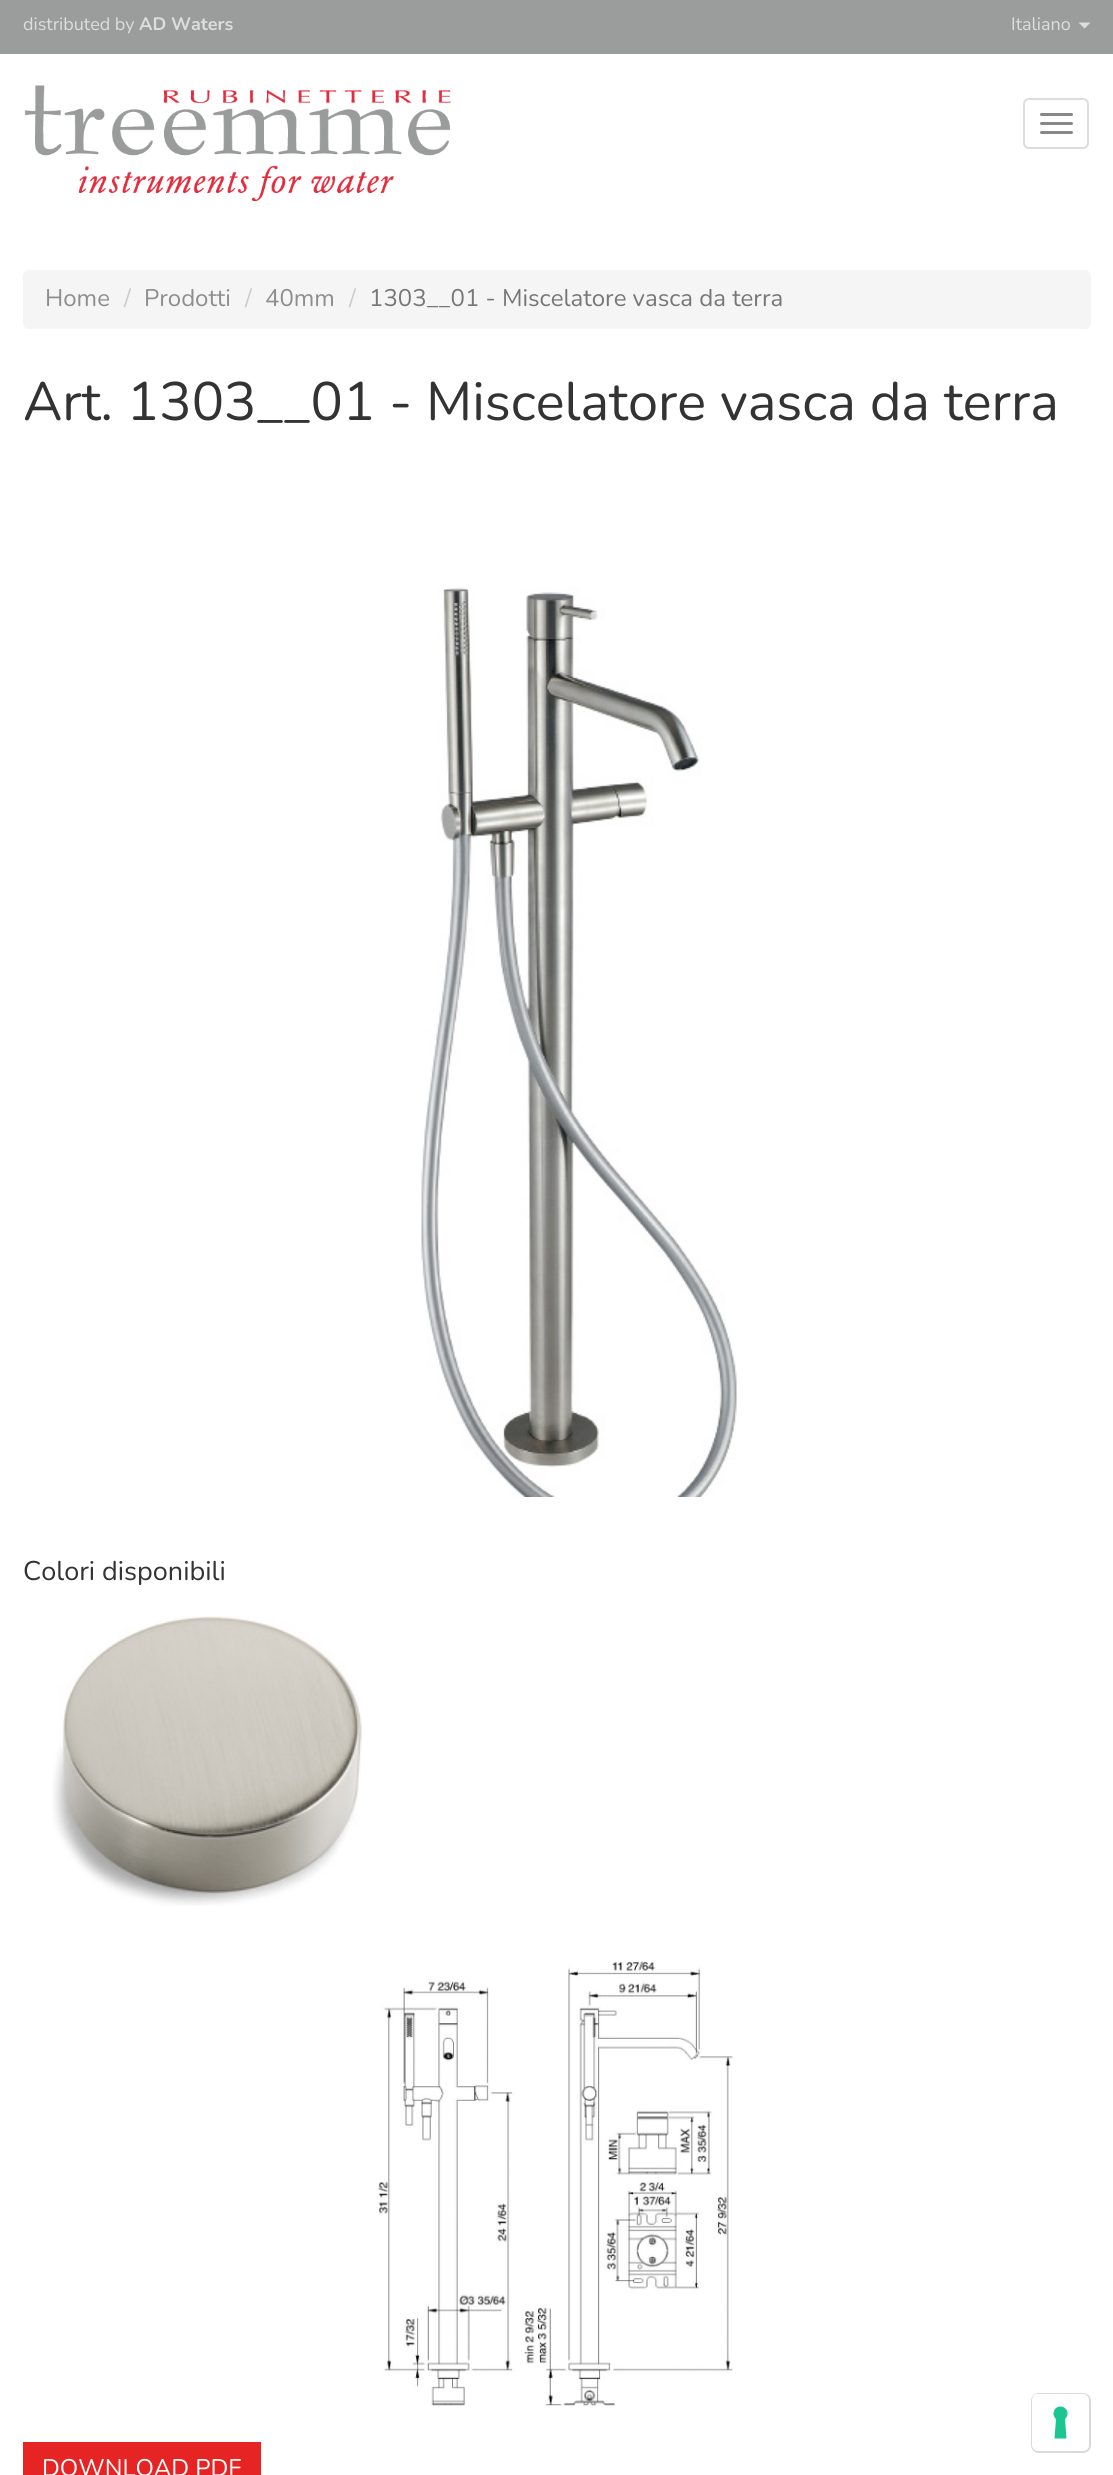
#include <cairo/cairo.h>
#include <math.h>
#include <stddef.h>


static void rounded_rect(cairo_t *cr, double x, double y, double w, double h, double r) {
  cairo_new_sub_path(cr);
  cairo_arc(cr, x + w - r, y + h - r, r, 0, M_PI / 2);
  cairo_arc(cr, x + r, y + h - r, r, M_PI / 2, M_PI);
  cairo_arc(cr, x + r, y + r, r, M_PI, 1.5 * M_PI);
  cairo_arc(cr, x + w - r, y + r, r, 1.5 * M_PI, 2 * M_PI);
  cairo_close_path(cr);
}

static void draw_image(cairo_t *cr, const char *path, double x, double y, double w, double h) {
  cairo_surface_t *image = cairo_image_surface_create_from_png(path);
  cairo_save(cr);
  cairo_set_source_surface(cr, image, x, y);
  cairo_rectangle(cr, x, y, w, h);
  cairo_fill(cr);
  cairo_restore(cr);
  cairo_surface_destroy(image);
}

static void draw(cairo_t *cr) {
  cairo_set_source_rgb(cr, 1, 1, 1);
  cairo_paint(cr);
  cairo_set_source_rgb(cr, 155 / 255.0, 157 / 255.0, 156 / 255.0);
  cairo_rectangle(cr, 0, 0, 1113, 54);
  cairo_fill(cr);
  cairo_set_source_rgb(cr, 221 / 255.0, 221 / 255.0, 221 / 255.0);
  cairo_new_path(cr);
  cairo_move_to(cr, 1078.5, 22.5);
  cairo_line_to(cr, 1090.5, 22.5);
  cairo_line_to(cr, 1084.5, 28.5);
  cairo_close_path(cr);
  cairo_fill(cr);
  draw_image(cr, "images/1.png", 24, 85, 427, 116);
  rounded_rect(cr, 1024, 99, 64, 49, 5);
  cairo_stroke(cr);
  cairo_set_source_rgb(cr, 136 / 255.0, 136 / 255.0, 136 / 255.0);
  rounded_rect(cr, 1040, 113, 33, 3, 1.5);
  cairo_fill(cr);
  rounded_rect(cr, 1040, 122, 33, 3, 1.5);
  cairo_fill(cr);
  rounded_rect(cr, 1040, 131, 33, 3, 1.5);
  cairo_fill(cr);
  cairo_set_source_rgb(cr, 245 / 255.0, 245 / 255.0, 245 / 255.0);
  rounded_rect(cr, 23, 270, 1068, 59, 6);
  cairo_fill(cr);
  draw_image(cr, "images/2.png", 421, 587, 316, 910);
  draw_image(cr, "images/3.png", 52, 1616, 310, 290);
  draw_image(cr, "images/4.png", 378, 1961, 355, 445);
  cairo_set_source_rgb(cr, 229 / 255.0, 36 / 255.0, 35 / 255.0);
  cairo_rectangle(cr, 23, 2442, 238, 33);
  cairo_fill(cr);
  rounded_rect(cr, 1032, 2394, 58, 58, 7);
  cairo_set_source_rgb(cr, 217 / 255.0, 217 / 255.0, 217 / 255.0);
  cairo_stroke(cr);
  cairo_set_source_rgb(cr, 1, 1, 1);
  rounded_rect(cr, 1032, 2394, 57, 57, 6);
  cairo_fill(cr);
  cairo_set_source_rgb(cr, 28 / 255.0, 198 / 255.0, 145 / 255.0);
  cairo_set_fill_rule(cr, CAIRO_FILL_RULE_EVEN_ODD);
  cairo_new_path(cr);
  cairo_move_to(cr, 1060.5, 2406.5);
  cairo_curve_to(cr, 1067, 2406.5, 1070, 2414.5, 1065, 2419);
  cairo_line_to(cr, 1066.5, 2438.5);
  cairo_line_to(cr, 1054.5, 2438.5);
  cairo_line_to(cr, 1056, 2419);
  cairo_curve_to(cr, 1051, 2414.5, 1054, 2406.5, 1060.5, 2406.5);
  cairo_close_path(cr);
  cairo_fill(cr);
  cairo_select_font_face(cr, "Nunito", CAIRO_FONT_SLANT_NORMAL, CAIRO_FONT_WEIGHT_NORMAL);
  cairo_set_font_size(cr, 18);
  cairo_set_source_rgb(cr, 221 / 255.0, 221 / 255.0, 221 / 255.0);
  cairo_move_to(cr, 23, 30);
  cairo_show_text(cr, "distributed by");
  cairo_select_font_face(cr, "Nunito", CAIRO_FONT_SLANT_NORMAL, CAIRO_FONT_WEIGHT_BOLD);
  cairo_move_to(cr, 139, 30);
  cairo_show_text(cr, "AD Waters");
  cairo_select_font_face(cr, "Nunito", CAIRO_FONT_SLANT_NORMAL, CAIRO_FONT_WEIGHT_NORMAL);
  cairo_move_to(cr, 1011, 30);
  cairo_show_text(cr, "Italiano");
  cairo_set_font_size(cr, 24);
  cairo_set_source_rgb(cr, 142 / 255.0, 142 / 255.0, 142 / 255.0);
  cairo_move_to(cr, 45, 306);
  cairo_show_text(cr, "Home");
  cairo_set_source_rgb(cr, 204 / 255.0, 204 / 255.0, 204 / 255.0);
  cairo_move_to(cr, 124, 306);
  cairo_show_text(cr, "/");
  cairo_set_source_rgb(cr, 142 / 255.0, 142 / 255.0, 142 / 255.0);
  cairo_move_to(cr, 144, 306);
  cairo_show_text(cr, "Prodotti");
  cairo_set_source_rgb(cr, 204 / 255.0, 204 / 255.0, 204 / 255.0);
  cairo_move_to(cr, 245, 306);
  cairo_show_text(cr, "/");
  cairo_set_source_rgb(cr, 142 / 255.0, 142 / 255.0, 142 / 255.0);
  cairo_move_to(cr, 265, 306);
  cairo_show_text(cr, "40mm");
  cairo_set_source_rgb(cr, 204 / 255.0, 204 / 255.0, 204 / 255.0);
  cairo_move_to(cr, 349, 306);
  cairo_show_text(cr, "/");
  cairo_set_source_rgb(cr, 119 / 255.0, 119 / 255.0, 119 / 255.0);
  cairo_move_to(cr, 369, 306);
  cairo_show_text(cr, "1303__01 - Miscelatore vasca da terra");
  cairo_set_font_size(cr, 54);
  cairo_set_source_rgb(cr, 51 / 255.0, 51 / 255.0, 51 / 255.0);
  cairo_move_to(cr, 23, 420);
  cairo_show_text(cr, "Art. 1303__01 - Miscelatore vasca da terra");
  cairo_set_font_size(cr, 27);
  cairo_move_to(cr, 23, 1580);
  cairo_show_text(cr, "Colori disponibili");
  cairo_set_font_size(cr, 24);
  cairo_set_source_rgb(cr, 1, 1, 1);
  cairo_move_to(cr, 42, 2476);
  cairo_show_text(cr, "DOWNLOAD PDF");
}

int main(void) {
  cairo_surface_t *surface = cairo_image_surface_create(CAIRO_FORMAT_RGB24, 1113, 2475);
  cairo_t *cr = cairo_create(surface);
  cairo_font_options_t *options = cairo_font_options_create();
  cairo_font_options_set_hint_metrics(options, CAIRO_HINT_METRICS_OFF);
  cairo_font_options_set_hint_style(options, CAIRO_HINT_STYLE_NONE);
  cairo_set_font_options(cr, options);
  cairo_set_miter_limit(cr, 4);
  draw(cr);
  cairo_surface_write_to_png(surface, "out.png");
  cairo_font_options_destroy(options);
  cairo_destroy(cr);
  cairo_surface_destroy(surface);
  return 0;
}
